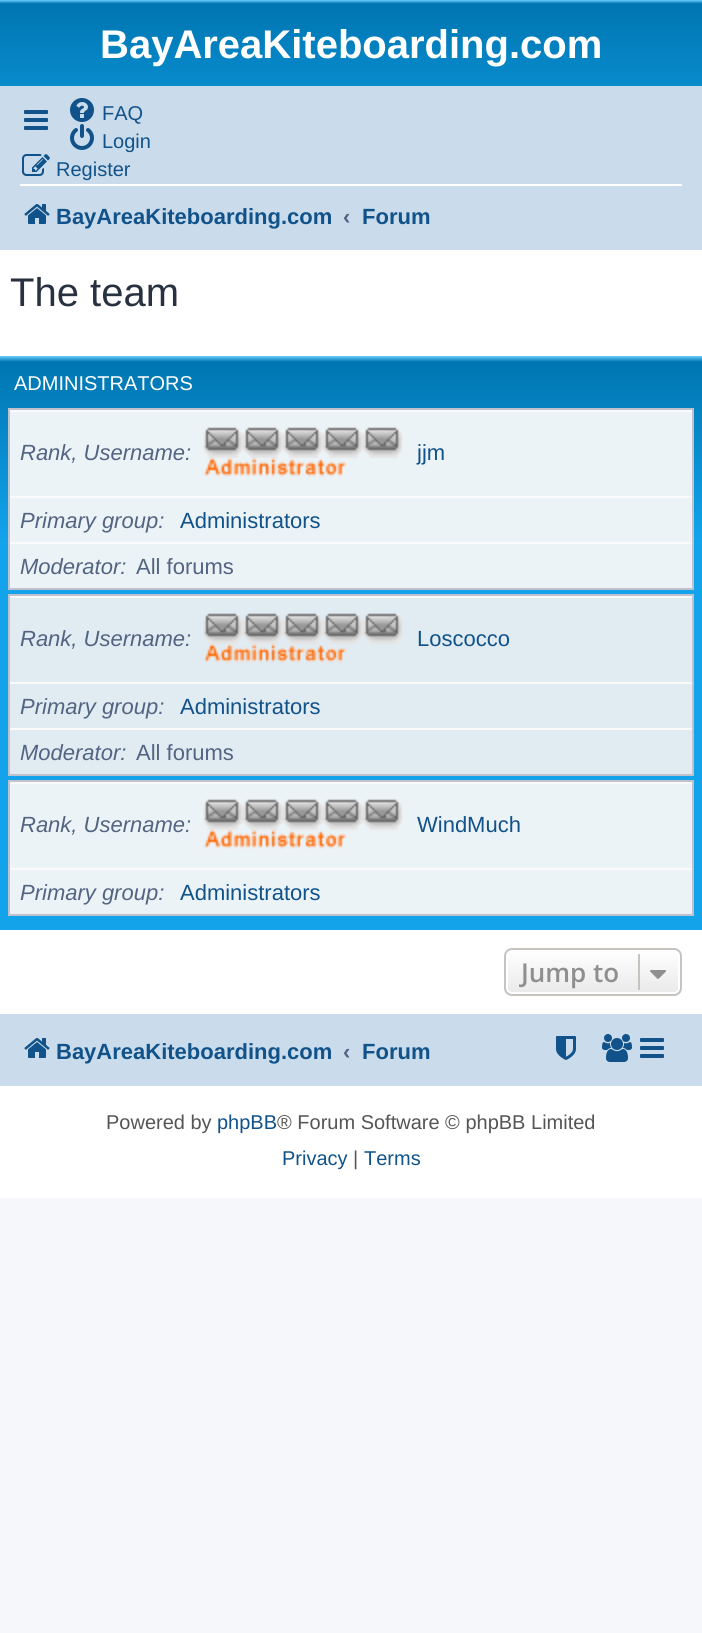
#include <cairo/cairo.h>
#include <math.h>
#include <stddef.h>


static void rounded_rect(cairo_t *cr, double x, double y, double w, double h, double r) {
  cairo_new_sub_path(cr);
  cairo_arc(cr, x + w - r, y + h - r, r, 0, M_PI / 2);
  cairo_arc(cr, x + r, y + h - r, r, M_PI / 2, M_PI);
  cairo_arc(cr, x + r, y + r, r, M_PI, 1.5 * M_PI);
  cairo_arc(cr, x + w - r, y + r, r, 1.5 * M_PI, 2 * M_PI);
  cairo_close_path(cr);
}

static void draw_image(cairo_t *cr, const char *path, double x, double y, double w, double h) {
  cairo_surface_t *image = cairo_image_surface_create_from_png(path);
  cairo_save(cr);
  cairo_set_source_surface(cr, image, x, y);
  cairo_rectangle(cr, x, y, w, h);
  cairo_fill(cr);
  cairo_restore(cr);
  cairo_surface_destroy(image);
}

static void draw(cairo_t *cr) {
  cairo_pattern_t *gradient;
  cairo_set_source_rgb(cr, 245 / 255.0, 247 / 255.0, 250 / 255.0);
  cairo_paint(cr);
  cairo_set_source_rgb(cr, 1, 1, 1);
  cairo_rectangle(cr, 0, 250, 702, 948);
  cairo_fill(cr);
  gradient = cairo_pattern_create_linear(351, 0, 351, 184);
  cairo_pattern_add_color_stop_rgba(gradient, 0, 106 / 255.0, 206 / 255.0, 1, 1);
  cairo_pattern_add_color_stop_rgba(gradient, 0.02, 0, 118 / 255.0, 177 / 255.0, 1);
  cairo_pattern_add_color_stop_rgba(gradient, 1, 18 / 255.0, 163 / 255.0, 235 / 255.0, 1);
  cairo_set_source(cr, gradient);
  cairo_pattern_destroy(gradient);
  cairo_rectangle(cr, 0, 0, 702, 86);
  cairo_fill(cr);
  cairo_set_source_rgb(cr, 202 / 255.0, 220 / 255.0, 235 / 255.0);
  cairo_rectangle(cr, 0, 86, 702, 164);
  cairo_fill(cr);
  draw_image(cr, "images/1.png", 24, 110, 24, 20);
  draw_image(cr, "images/2.png", 70, 98, 24, 24);
  draw_image(cr, "images/3.png", 70, 124, 24, 26);
  draw_image(cr, "images/4.png", 22, 154, 28, 22);
  cairo_set_source_rgb(cr, 1, 1, 1);
  cairo_rectangle(cr, 20, 184, 662, 2);
  cairo_fill(cr);
  draw_image(cr, "images/5.png", 24, 204, 26, 20);
  gradient = cairo_pattern_create_linear(351, 356, 351, 930);
  cairo_pattern_add_color_stop_rgba(gradient, 0, 106 / 255.0, 206 / 255.0, 1, 1);
  cairo_pattern_add_color_stop_rgba(gradient, 0.01, 0, 118 / 255.0, 177 / 255.0, 1);
  cairo_pattern_add_color_stop_rgba(gradient, 0.32, 18 / 255.0, 163 / 255.0, 235 / 255.0, 1);
  cairo_pattern_add_color_stop_rgba(gradient, 1, 18 / 255.0, 163 / 255.0, 235 / 255.0, 1);
  cairo_set_source(cr, gradient);
  cairo_pattern_destroy(gradient);
  cairo_rectangle(cr, 0, 356, 702, 574);
  cairo_fill(cr);
  cairo_set_source_rgb(cr, 236 / 255.0, 243 / 255.0, 247 / 255.0);
  cairo_rectangle(cr, 10, 412, 682, 176);
  cairo_fill(cr);
  cairo_rectangle(cr, 9, 409, 684, 180);
  cairo_set_source_rgb(cr, 191 / 255.0, 193 / 255.0, 207 / 255.0);
  cairo_stroke(cr);
  cairo_set_source_rgb(cr, 250 / 255.0, 250 / 255.0, 250 / 255.0);
  cairo_rectangle(cr, 10, 410, 682, 2);
  cairo_fill(cr);
  draw_image(cr, "images/6.png", 203, 427, 200, 50);
  cairo_rectangle(cr, 10, 496, 682, 2);
  cairo_fill(cr);
  cairo_rectangle(cr, 10, 542, 682, 2);
  cairo_fill(cr);
  cairo_set_source_rgb(cr, 225 / 255.0, 235 / 255.0, 242 / 255.0);
  cairo_rectangle(cr, 10, 598, 682, 176);
  cairo_fill(cr);
  cairo_rectangle(cr, 9, 595, 684, 180);
  cairo_set_source_rgb(cr, 191 / 255.0, 193 / 255.0, 207 / 255.0);
  cairo_stroke(cr);
  cairo_set_source_rgb(cr, 250 / 255.0, 250 / 255.0, 250 / 255.0);
  cairo_rectangle(cr, 10, 596, 682, 2);
  cairo_fill(cr);
  draw_image(cr, "images/7.png", 203, 613, 200, 50);
  cairo_rectangle(cr, 10, 682, 682, 2);
  cairo_fill(cr);
  cairo_rectangle(cr, 10, 728, 682, 2);
  cairo_fill(cr);
  cairo_set_source_rgb(cr, 236 / 255.0, 243 / 255.0, 247 / 255.0);
  cairo_rectangle(cr, 10, 784, 682, 130);
  cairo_fill(cr);
  cairo_rectangle(cr, 9, 781, 684, 134);
  cairo_set_source_rgb(cr, 191 / 255.0, 193 / 255.0, 207 / 255.0);
  cairo_stroke(cr);
  cairo_set_source_rgb(cr, 250 / 255.0, 250 / 255.0, 250 / 255.0);
  cairo_rectangle(cr, 10, 782, 682, 2);
  cairo_fill(cr);
  draw_image(cr, "images/6.png", 203, 799, 200, 50);
  cairo_rectangle(cr, 10, 868, 682, 2);
  cairo_fill(cr);
  cairo_save(cr);
  rounded_rect(cr, 504, 948, 178, 48, 8);
  cairo_clip(cr);
  gradient = cairo_pattern_create_linear(593, 950, 593, 994);
  cairo_pattern_add_color_stop_rgba(gradient, 0, 1, 1, 1, 1);
  cairo_pattern_add_color_stop_rgba(gradient, 1, 233 / 255.0, 233 / 255.0, 233 / 255.0, 1);
  cairo_set_source(cr, gradient);
  cairo_pattern_destroy(gradient);
  cairo_rectangle(cr, 504, 950, 178, 44);
  cairo_fill(cr);
  cairo_restore(cr);
  rounded_rect(cr, 507, 951, 172, 42, 5);
  cairo_set_source_rgb(cr, 1, 1, 1);
  cairo_stroke(cr);
  rounded_rect(cr, 505, 949, 176, 46, 7);
  cairo_set_source_rgb(cr, 199 / 255.0, 195 / 255.0, 191 / 255.0);
  cairo_stroke(cr);
  cairo_rectangle(cr, 638, 954, 2, 36);
  cairo_fill(cr);
  draw_image(cr, "images/8.png", 650, 970, 16, 9);
  cairo_set_source_rgb(cr, 202 / 255.0, 220 / 255.0, 235 / 255.0);
  cairo_rectangle(cr, 0, 1014, 702, 72);
  cairo_fill(cr);
  draw_image(cr, "images/5.png", 24, 1038, 26, 20);
  draw_image(cr, "images/9.png", 556, 1036, 20, 24);
  draw_image(cr, "images/10.png", 602, 1034, 30, 28);
  draw_image(cr, "images/1.png", 640, 1038, 24, 20);
  cairo_select_font_face(cr, "Liberation Sans", CAIRO_FONT_SLANT_NORMAL, CAIRO_FONT_WEIGHT_BOLD);
  cairo_set_font_size(cr, 40);
  cairo_set_source_rgb(cr, 1, 1, 1);
  cairo_move_to(cr, 100, 58);
  cairo_show_text(cr, "BayAreaKiteboarding.com");
  cairo_select_font_face(cr, "Liberation Sans", CAIRO_FONT_SLANT_NORMAL, CAIRO_FONT_WEIGHT_NORMAL);
  cairo_set_font_size(cr, 20);
  cairo_set_source_rgb(cr, 16 / 255.0, 82 / 255.0, 137 / 255.0);
  cairo_move_to(cr, 102, 120);
  cairo_show_text(cr, "FAQ");
  cairo_move_to(cr, 102, 148);
  cairo_show_text(cr, "Login");
  cairo_move_to(cr, 56, 176);
  cairo_show_text(cr, "Register");
  cairo_select_font_face(cr, "Liberation Sans", CAIRO_FONT_SLANT_NORMAL, CAIRO_FONT_WEIGHT_BOLD);
  cairo_set_font_size(cr, 22);
  cairo_move_to(cr, 56, 224);
  cairo_show_text(cr, "BayAreaKiteboarding.com");
  cairo_set_source_rgb(cr, 83 / 255.0, 100 / 255.0, 130 / 255.0);
  cairo_move_to(cr, 343, 224);
  cairo_show_text(cr, "‹");
  cairo_set_source_rgb(cr, 16 / 255.0, 82 / 255.0, 137 / 255.0);
  cairo_move_to(cr, 362, 224);
  cairo_show_text(cr, "Forum");
  cairo_select_font_face(cr, "Liberation Sans", CAIRO_FONT_SLANT_NORMAL, CAIRO_FONT_WEIGHT_NORMAL);
  cairo_set_font_size(cr, 40);
  cairo_set_source_rgb(cr, 40 / 255.0, 49 / 255.0, 63 / 255.0);
  cairo_move_to(cr, 10, 306);
  cairo_show_text(cr, "The team");
  cairo_set_font_size(cr, 20);
  cairo_set_source_rgb(cr, 1, 1, 1);
  cairo_move_to(cr, 14, 390);
  cairo_show_text(cr, "ADMINISTRATORS");
  cairo_select_font_face(cr, "Liberation Sans", CAIRO_FONT_SLANT_ITALIC, CAIRO_FONT_WEIGHT_NORMAL);
  cairo_set_font_size(cr, 22);
  cairo_set_source_rgb(cr, 83 / 255.0, 100 / 255.0, 130 / 255.0);
  cairo_move_to(cr, 20, 460);
  cairo_show_text(cr, "Rank, Username:");
  cairo_select_font_face(cr, "Liberation Sans", CAIRO_FONT_SLANT_NORMAL, CAIRO_FONT_WEIGHT_NORMAL);
  cairo_set_source_rgb(cr, 16 / 255.0, 82 / 255.0, 137 / 255.0);
  cairo_move_to(cr, 417, 460);
  cairo_show_text(cr, "jjm");
  cairo_select_font_face(cr, "Liberation Sans", CAIRO_FONT_SLANT_ITALIC, CAIRO_FONT_WEIGHT_NORMAL);
  cairo_set_source_rgb(cr, 83 / 255.0, 100 / 255.0, 130 / 255.0);
  cairo_move_to(cr, 20, 528);
  cairo_show_text(cr, "Primary group:");
  cairo_select_font_face(cr, "Liberation Sans", CAIRO_FONT_SLANT_NORMAL, CAIRO_FONT_WEIGHT_NORMAL);
  cairo_set_source_rgb(cr, 16 / 255.0, 82 / 255.0, 137 / 255.0);
  cairo_move_to(cr, 180, 528);
  cairo_show_text(cr, "Administrators");
  cairo_select_font_face(cr, "Liberation Sans", CAIRO_FONT_SLANT_ITALIC, CAIRO_FONT_WEIGHT_NORMAL);
  cairo_set_source_rgb(cr, 83 / 255.0, 100 / 255.0, 130 / 255.0);
  cairo_move_to(cr, 20, 574);
  cairo_show_text(cr, "Moderator:");
  cairo_select_font_face(cr, "Liberation Sans", CAIRO_FONT_SLANT_NORMAL, CAIRO_FONT_WEIGHT_NORMAL);
  cairo_move_to(cr, 136, 574);
  cairo_show_text(cr, "All forums");
  cairo_select_font_face(cr, "Liberation Sans", CAIRO_FONT_SLANT_ITALIC, CAIRO_FONT_WEIGHT_NORMAL);
  cairo_move_to(cr, 20, 646);
  cairo_show_text(cr, "Rank, Username:");
  cairo_select_font_face(cr, "Liberation Sans", CAIRO_FONT_SLANT_NORMAL, CAIRO_FONT_WEIGHT_NORMAL);
  cairo_set_source_rgb(cr, 16 / 255.0, 82 / 255.0, 137 / 255.0);
  cairo_move_to(cr, 417, 646);
  cairo_show_text(cr, "Loscocco");
  cairo_select_font_face(cr, "Liberation Sans", CAIRO_FONT_SLANT_ITALIC, CAIRO_FONT_WEIGHT_NORMAL);
  cairo_set_source_rgb(cr, 83 / 255.0, 100 / 255.0, 130 / 255.0);
  cairo_move_to(cr, 20, 714);
  cairo_show_text(cr, "Primary group:");
  cairo_select_font_face(cr, "Liberation Sans", CAIRO_FONT_SLANT_NORMAL, CAIRO_FONT_WEIGHT_NORMAL);
  cairo_set_source_rgb(cr, 16 / 255.0, 82 / 255.0, 137 / 255.0);
  cairo_move_to(cr, 180, 714);
  cairo_show_text(cr, "Administrators");
  cairo_select_font_face(cr, "Liberation Sans", CAIRO_FONT_SLANT_ITALIC, CAIRO_FONT_WEIGHT_NORMAL);
  cairo_set_source_rgb(cr, 83 / 255.0, 100 / 255.0, 130 / 255.0);
  cairo_move_to(cr, 20, 760);
  cairo_show_text(cr, "Moderator:");
  cairo_select_font_face(cr, "Liberation Sans", CAIRO_FONT_SLANT_NORMAL, CAIRO_FONT_WEIGHT_NORMAL);
  cairo_move_to(cr, 136, 760);
  cairo_show_text(cr, "All forums");
  cairo_select_font_face(cr, "Liberation Sans", CAIRO_FONT_SLANT_ITALIC, CAIRO_FONT_WEIGHT_NORMAL);
  cairo_move_to(cr, 20, 832);
  cairo_show_text(cr, "Rank, Username:");
  cairo_select_font_face(cr, "Liberation Sans", CAIRO_FONT_SLANT_NORMAL, CAIRO_FONT_WEIGHT_NORMAL);
  cairo_set_source_rgb(cr, 16 / 255.0, 82 / 255.0, 137 / 255.0);
  cairo_move_to(cr, 417, 832);
  cairo_show_text(cr, "WindMuch");
  cairo_select_font_face(cr, "Liberation Sans", CAIRO_FONT_SLANT_ITALIC, CAIRO_FONT_WEIGHT_NORMAL);
  cairo_set_source_rgb(cr, 83 / 255.0, 100 / 255.0, 130 / 255.0);
  cairo_move_to(cr, 20, 900);
  cairo_show_text(cr, "Primary group:");
  cairo_select_font_face(cr, "Liberation Sans", CAIRO_FONT_SLANT_NORMAL, CAIRO_FONT_WEIGHT_NORMAL);
  cairo_set_source_rgb(cr, 16 / 255.0, 82 / 255.0, 137 / 255.0);
  cairo_move_to(cr, 180, 900);
  cairo_show_text(cr, "Administrators");
  cairo_select_font_face(cr, "Open Sans SemiBold", CAIRO_FONT_SLANT_NORMAL, CAIRO_FONT_WEIGHT_NORMAL);
  cairo_set_font_size(cr, 26);
  cairo_set_source_rgb(cr, 143 / 255.0, 143 / 255.0, 143 / 255.0);
  cairo_move_to(cr, 521, 982);
  cairo_show_text(cr, "Jump to");
  cairo_select_font_face(cr, "Liberation Sans", CAIRO_FONT_SLANT_NORMAL, CAIRO_FONT_WEIGHT_BOLD);
  cairo_set_font_size(cr, 22);
  cairo_set_source_rgb(cr, 16 / 255.0, 82 / 255.0, 137 / 255.0);
  cairo_move_to(cr, 56, 1059);
  cairo_show_text(cr, "BayAreaKiteboarding.com");
  cairo_set_source_rgb(cr, 83 / 255.0, 100 / 255.0, 130 / 255.0);
  cairo_move_to(cr, 343, 1059);
  cairo_show_text(cr, "‹");
  cairo_set_source_rgb(cr, 16 / 255.0, 82 / 255.0, 137 / 255.0);
  cairo_move_to(cr, 362, 1059);
  cairo_show_text(cr, "Forum");
  cairo_select_font_face(cr, "Liberation Sans", CAIRO_FONT_SLANT_NORMAL, CAIRO_FONT_WEIGHT_NORMAL);
  cairo_set_font_size(cr, 20);
  cairo_set_source_rgb(cr, 85 / 255.0, 85 / 255.0, 85 / 255.0);
  cairo_move_to(cr, 106, 1129);
  cairo_show_text(cr, "Powered by");
  cairo_set_source_rgb(cr, 16 / 255.0, 82 / 255.0, 137 / 255.0);
  cairo_move_to(cr, 217, 1129);
  cairo_show_text(cr, "phpBB");
  cairo_set_source_rgb(cr, 85 / 255.0, 85 / 255.0, 85 / 255.0);
  cairo_move_to(cr, 277, 1129);
  cairo_show_text(cr, "® Forum Software © phpBB Limited");
  cairo_set_source_rgb(cr, 16 / 255.0, 82 / 255.0, 137 / 255.0);
  cairo_move_to(cr, 282, 1165);
  cairo_show_text(cr, "Privacy");
  cairo_set_source_rgb(cr, 85 / 255.0, 85 / 255.0, 85 / 255.0);
  cairo_move_to(cr, 353, 1165);
  cairo_show_text(cr, "|");
  cairo_set_source_rgb(cr, 16 / 255.0, 82 / 255.0, 137 / 255.0);
  cairo_move_to(cr, 364, 1165);
  cairo_show_text(cr, "Terms");
}

int main(void) {
  cairo_surface_t *surface = cairo_image_surface_create(CAIRO_FORMAT_RGB24, 702, 1633);
  cairo_t *cr = cairo_create(surface);
  cairo_font_options_t *options = cairo_font_options_create();
  cairo_font_options_set_hint_metrics(options, CAIRO_HINT_METRICS_OFF);
  cairo_font_options_set_hint_style(options, CAIRO_HINT_STYLE_NONE);
  cairo_set_font_options(cr, options);
  cairo_set_miter_limit(cr, 4);
  draw(cr);
  cairo_surface_write_to_png(surface, "out.png");
  cairo_font_options_destroy(options);
  cairo_destroy(cr);
  cairo_surface_destroy(surface);
  return 0;
}
